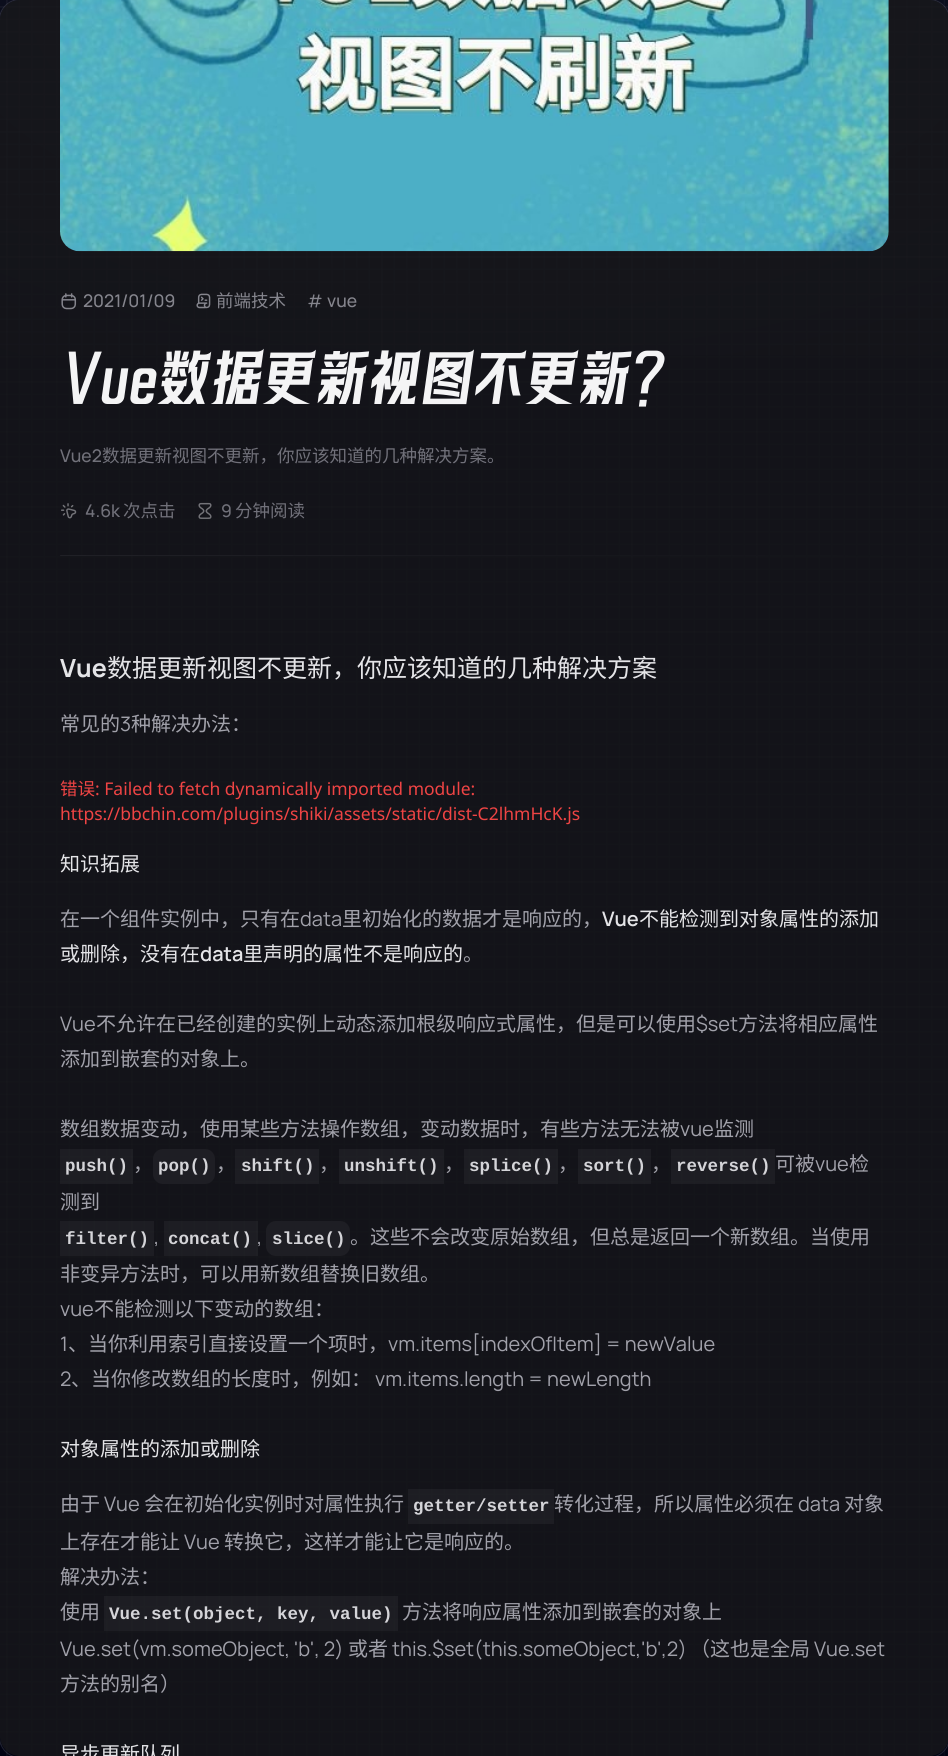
#include <cairo/cairo.h>
#include <math.h>
#include <stddef.h>


static void rounded_rect(cairo_t *cr, double x, double y, double w, double h, double r) {
  cairo_new_sub_path(cr);
  cairo_arc(cr, x + w - r, y + h - r, r, 0, M_PI / 2);
  cairo_arc(cr, x + r, y + h - r, r, M_PI / 2, M_PI);
  cairo_arc(cr, x + r, y + r, r, M_PI, 1.5 * M_PI);
  cairo_arc(cr, x + w - r, y + r, r, 1.5 * M_PI, 2 * M_PI);
  cairo_close_path(cr);
}

static void draw_image(cairo_t *cr, const char *path, double x, double y, double w, double h) {
  cairo_surface_t *image = cairo_image_surface_create_from_png(path);
  cairo_save(cr);
  cairo_set_source_surface(cr, image, x, y);
  cairo_rectangle(cr, x, y, w, h);
  cairo_fill(cr);
  cairo_restore(cr);
  cairo_surface_destroy(image);
}

static void draw(cairo_t *cr) {
  cairo_pattern_t *gradient;
  cairo_set_source_rgb(cr, 0, 2 / 255.0, 18 / 255.0);
  cairo_paint(cr);
  draw_image(cr, "images/1.png", 0, 0, 948, 1756);
  gradient = cairo_pattern_create_radial(0, 0, 0, 0, 0, 1);
  cairo_pattern_set_matrix(gradient, &(cairo_matrix_t){1.0 / 984, 0, 0, 1.0 / 466, -1.0 * 474 / 984, -1.0 * 0 / 466});
  cairo_pattern_add_color_stop_rgba(gradient, 0, 1, 1, 1, 0.09);
  cairo_pattern_add_color_stop_rgba(gradient, 1, 1, 1, 1, 0);
  cairo_set_source(cr, gradient);
  cairo_pattern_destroy(gradient);
  cairo_rectangle(cr, 0, 0, 948, 355);
  cairo_fill(cr);
  rounded_rect(cr, -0.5, -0.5, 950, 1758, 20.5);
  cairo_set_source_rgba(cr, 161 / 255.0, 161 / 255.0, 170 / 255.0, 0.2);
  cairo_set_line_width(cr, 1);
  cairo_stroke(cr);
  cairo_set_source_rgba(cr, 24 / 255.0, 24 / 255.0, 27 / 255.0, 0.8);
  rounded_rect(cr, 0, 0, 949, 1756, 20);
  cairo_fill(cr);
  draw_image(cr, "images/2.png", 60, 0, 829, 252);
  draw_image(cr, "images/3.png", 61, 293, 16, 17);
  draw_image(cr, "images/4.png", 196, 293, 15, 16);
  draw_image(cr, "images/5.png", 308, 294, 14, 14);
  draw_image(cr, "images/6.png", 61, 503, 16, 16);
  draw_image(cr, "images/7.png", 198, 502, 14, 17);
  gradient = cairo_pattern_create_linear(60, 556, 889, 556);
  cairo_pattern_add_color_stop_rgba(gradient, 0, 32 / 255.0, 32 / 255.0, 38 / 255.0, 1);
  cairo_pattern_add_color_stop_rgba(gradient, 0.5, 24 / 255.0, 24 / 255.0, 30 / 255.0, 1);
  cairo_pattern_add_color_stop_rgba(gradient, 1, 19 / 255.0, 20 / 255.0, 25 / 255.0, 1);
  cairo_set_source(cr, gradient);
  cairo_pattern_destroy(gradient);
  rounded_rect(cr, 60, 555, 829, 1, 0.5);
  cairo_fill(cr);
  cairo_set_source_rgba(cr, 228 / 255.0, 228 / 255.0, 231 / 255.0, 0.05);
  cairo_rectangle(cr, 60, 1149, 73, 35);
  cairo_fill(cr);
  cairo_set_source_rgb(cr, 30 / 255.0, 30 / 255.0, 36 / 255.0);
  rounded_rect(cr, 153, 1149, 62, 35, 10);
  cairo_fill(cr);
  cairo_set_source_rgba(cr, 228 / 255.0, 228 / 255.0, 231 / 255.0, 0.05);
  cairo_rectangle(cr, 235, 1149, 84, 35);
  cairo_fill(cr);
  cairo_rectangle(cr, 339, 1149, 105, 35);
  cairo_fill(cr);
  cairo_rectangle(cr, 464, 1149, 94, 35);
  cairo_fill(cr);
  cairo_rectangle(cr, 578, 1149, 73, 35);
  cairo_fill(cr);
  cairo_rectangle(cr, 671, 1149, 104, 35);
  cairo_fill(cr);
  cairo_rectangle(cr, 60, 1221, 94, 35);
  cairo_fill(cr);
  cairo_rectangle(cr, 164, 1221, 94, 35);
  cairo_fill(cr);
  cairo_set_source_rgb(cr, 30 / 255.0, 30 / 255.0, 36 / 255.0);
  rounded_rect(cr, 266, 1221, 84, 35, 10);
  cairo_fill(cr);
  cairo_set_source_rgba(cr, 228 / 255.0, 228 / 255.0, 231 / 255.0, 0.05);
  cairo_rectangle(cr, 408, 1489, 146, 35);
  cairo_fill(cr);
  cairo_rectangle(cr, 104, 1596, 294, 35);
  cairo_fill(cr);
  cairo_select_font_face(cr, "Manrope Medium", CAIRO_FONT_SLANT_NORMAL, CAIRO_FONT_WEIGHT_NORMAL);
  cairo_set_font_size(cr, 17.5);
  cairo_set_source_rgb(cr, 133 / 255.0, 133 / 255.0, 141 / 255.0);
  cairo_move_to(cr, 83, 307);
  cairo_show_text(cr, "2021/01/09");
  cairo_select_font_face(cr, "Noto Sans CJK SC", CAIRO_FONT_SLANT_NORMAL, CAIRO_FONT_WEIGHT_NORMAL);
  cairo_move_to(cr, 216, 307);
  cairo_show_text(cr, "前端技术");
  cairo_select_font_face(cr, "Manrope Medium", CAIRO_FONT_SLANT_NORMAL, CAIRO_FONT_WEIGHT_NORMAL);
  cairo_move_to(cr, 327, 307);
  cairo_show_text(cr, "vue");
  cairo_select_font_face(cr, "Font", CAIRO_FONT_SLANT_NORMAL, CAIRO_FONT_WEIGHT_NORMAL);
  cairo_set_font_size(cr, 60);
  cairo_set_source_rgb(cr, 244 / 255.0, 244 / 255.0, 245 / 255.0);
  cairo_move_to(cr, 60, 404);
  cairo_show_text(cr, "Vue数据更新视图不更新？");
  cairo_select_font_face(cr, "Manrope Medium", CAIRO_FONT_SLANT_NORMAL, CAIRO_FONT_WEIGHT_NORMAL);
  cairo_set_font_size(cr, 17.5);
  cairo_set_source_rgb(cr, 113 / 255.0, 113 / 255.0, 122 / 255.0);
  cairo_move_to(cr, 60, 462);
  cairo_show_text(cr, "Vue2");
  cairo_select_font_face(cr, "Noto Sans CJK SC", CAIRO_FONT_SLANT_NORMAL, CAIRO_FONT_WEIGHT_NORMAL);
  cairo_move_to(cr, 102, 462);
  cairo_show_text(cr, "数据更新视图不更新，你应该知道的几种解决方案。");
  cairo_select_font_face(cr, "Manrope Medium", CAIRO_FONT_SLANT_NORMAL, CAIRO_FONT_WEIGHT_NORMAL);
  cairo_move_to(cr, 85, 517);
  cairo_show_text(cr, "4.6k");
  cairo_select_font_face(cr, "Noto Sans CJK SC", CAIRO_FONT_SLANT_NORMAL, CAIRO_FONT_WEIGHT_NORMAL);
  cairo_move_to(cr, 123, 517);
  cairo_show_text(cr, "次点击");
  cairo_select_font_face(cr, "Manrope Medium", CAIRO_FONT_SLANT_NORMAL, CAIRO_FONT_WEIGHT_NORMAL);
  cairo_move_to(cr, 221, 517);
  cairo_show_text(cr, "9");
  cairo_select_font_face(cr, "Noto Sans CJK SC", CAIRO_FONT_SLANT_NORMAL, CAIRO_FONT_WEIGHT_NORMAL);
  cairo_move_to(cr, 235, 517);
  cairo_show_text(cr, "分钟阅读");
  cairo_select_font_face(cr, "Manrope", CAIRO_FONT_SLANT_NORMAL, CAIRO_FONT_WEIGHT_BOLD);
  cairo_set_font_size(cr, 25);
  cairo_set_source_rgb(cr, 228 / 255.0, 228 / 255.0, 231 / 255.0);
  cairo_move_to(cr, 60, 677);
  cairo_show_text(cr, "Vue");
  cairo_select_font_face(cr, "Noto Sans CJK SC", CAIRO_FONT_SLANT_NORMAL, CAIRO_FONT_WEIGHT_NORMAL);
  cairo_move_to(cr, 107, 677);
  cairo_show_text(cr, "数据更新视图不更新，你应该知道的几种解决方案");
  cairo_set_font_size(cr, 20);
  cairo_set_source_rgb(cr, 161 / 255.0, 161 / 255.0, 170 / 255.0);
  cairo_move_to(cr, 60, 731);
  cairo_show_text(cr, "常见的");
  cairo_select_font_face(cr, "Manrope", CAIRO_FONT_SLANT_NORMAL, CAIRO_FONT_WEIGHT_NORMAL);
  cairo_move_to(cr, 120, 731);
  cairo_show_text(cr, "3");
  cairo_select_font_face(cr, "Noto Sans CJK SC", CAIRO_FONT_SLANT_NORMAL, CAIRO_FONT_WEIGHT_NORMAL);
  cairo_move_to(cr, 131, 731);
  cairo_show_text(cr, "种解决办法：");
  cairo_set_font_size(cr, 17.5);
  cairo_set_source_rgb(cr, 239 / 255.0, 68 / 255.0, 68 / 255.0);
  cairo_move_to(cr, 60, 795);
  cairo_show_text(cr, "错误");
  cairo_select_font_face(cr, "Noto Sans", CAIRO_FONT_SLANT_NORMAL, CAIRO_FONT_WEIGHT_NORMAL);
  cairo_move_to(cr, 95, 795);
  cairo_show_text(cr, ": Failed to fetch dynamically imported module:");
  cairo_move_to(cr, 60, 820);
  cairo_show_text(cr, "https://bbchin.com/plugins/shiki/assets/static/dist-C2lhmHcK.js");
  cairo_select_font_face(cr, "Noto Sans CJK SC", CAIRO_FONT_SLANT_NORMAL, CAIRO_FONT_WEIGHT_NORMAL);
  cairo_set_font_size(cr, 20);
  cairo_set_source_rgb(cr, 228 / 255.0, 228 / 255.0, 231 / 255.0);
  cairo_move_to(cr, 60, 871);
  cairo_show_text(cr, "知识拓展");
  cairo_set_source_rgb(cr, 161 / 255.0, 161 / 255.0, 170 / 255.0);
  cairo_move_to(cr, 60, 926);
  cairo_show_text(cr, "在一个组件实例中，只有在");
  cairo_select_font_face(cr, "Manrope", CAIRO_FONT_SLANT_NORMAL, CAIRO_FONT_WEIGHT_NORMAL);
  cairo_move_to(cr, 300, 926);
  cairo_show_text(cr, "data");
  cairo_select_font_face(cr, "Noto Sans CJK SC", CAIRO_FONT_SLANT_NORMAL, CAIRO_FONT_WEIGHT_NORMAL);
  cairo_move_to(cr, 342, 926);
  cairo_show_text(cr, "里初始化的数据才是响应的，");
  cairo_select_font_face(cr, "Manrope SemiBold", CAIRO_FONT_SLANT_NORMAL, CAIRO_FONT_WEIGHT_NORMAL);
  cairo_set_source_rgb(cr, 228 / 255.0, 228 / 255.0, 231 / 255.0);
  cairo_move_to(cr, 602, 926);
  cairo_show_text(cr, "Vue");
  cairo_select_font_face(cr, "Noto Sans CJK SC", CAIRO_FONT_SLANT_NORMAL, CAIRO_FONT_WEIGHT_NORMAL);
  cairo_move_to(cr, 639, 926);
  cairo_show_text(cr, "不能检测到对象属性的添加");
  cairo_move_to(cr, 60, 961);
  cairo_show_text(cr, "或删除，没有在");
  cairo_select_font_face(cr, "Manrope SemiBold", CAIRO_FONT_SLANT_NORMAL, CAIRO_FONT_WEIGHT_NORMAL);
  cairo_move_to(cr, 200, 961);
  cairo_show_text(cr, "data");
  cairo_select_font_face(cr, "Noto Sans CJK SC", CAIRO_FONT_SLANT_NORMAL, CAIRO_FONT_WEIGHT_NORMAL);
  cairo_move_to(cr, 243, 961);
  cairo_show_text(cr, "里声明的属性不是响应的");
  cairo_set_source_rgb(cr, 161 / 255.0, 161 / 255.0, 170 / 255.0);
  cairo_move_to(cr, 463, 961);
  cairo_show_text(cr, "。");
  cairo_select_font_face(cr, "Manrope", CAIRO_FONT_SLANT_NORMAL, CAIRO_FONT_WEIGHT_NORMAL);
  cairo_move_to(cr, 60, 1031);
  cairo_show_text(cr, "Vue");
  cairo_select_font_face(cr, "Noto Sans CJK SC", CAIRO_FONT_SLANT_NORMAL, CAIRO_FONT_WEIGHT_NORMAL);
  cairo_move_to(cr, 96, 1031);
  cairo_show_text(cr, "不允许在已经创建的实例上动态添加根级响应式属性，但是可以使用");
  cairo_select_font_face(cr, "Manrope", CAIRO_FONT_SLANT_NORMAL, CAIRO_FONT_WEIGHT_NORMAL);
  cairo_move_to(cr, 696, 1031);
  cairo_show_text(cr, "$set");
  cairo_select_font_face(cr, "Noto Sans CJK SC", CAIRO_FONT_SLANT_NORMAL, CAIRO_FONT_WEIGHT_NORMAL);
  cairo_move_to(cr, 738, 1031);
  cairo_show_text(cr, "方法将相应属性");
  cairo_move_to(cr, 60, 1066);
  cairo_show_text(cr, "添加到嵌套的对象上。");
  cairo_move_to(cr, 60, 1136);
  cairo_show_text(cr, "数组数据变动，使用某些方法操作数组，变动数据时，有些方法无法被");
  cairo_select_font_face(cr, "Manrope", CAIRO_FONT_SLANT_NORMAL, CAIRO_FONT_WEIGHT_NORMAL);
  cairo_move_to(cr, 680, 1136);
  cairo_show_text(cr, "vue");
  cairo_select_font_face(cr, "Noto Sans CJK SC", CAIRO_FONT_SLANT_NORMAL, CAIRO_FONT_WEIGHT_NORMAL);
  cairo_move_to(cr, 714, 1136);
  cairo_show_text(cr, "监测");
  cairo_select_font_face(cr, "Liberation Mono", CAIRO_FONT_SLANT_NORMAL, CAIRO_FONT_WEIGHT_BOLD);
  cairo_set_font_size(cr, 17.5);
  cairo_set_source_rgb(cr, 212 / 255.0, 212 / 255.0, 216 / 255.0);
  cairo_move_to(cr, 65, 1171);
  cairo_show_text(cr, "push()");
  cairo_select_font_face(cr, "Noto Sans CJK SC", CAIRO_FONT_SLANT_NORMAL, CAIRO_FONT_WEIGHT_NORMAL);
  cairo_set_font_size(cr, 20);
  cairo_set_source_rgb(cr, 161 / 255.0, 161 / 255.0, 170 / 255.0);
  cairo_move_to(cr, 133, 1171);
  cairo_show_text(cr, "，");
  cairo_select_font_face(cr, "Liberation Mono", CAIRO_FONT_SLANT_NORMAL, CAIRO_FONT_WEIGHT_BOLD);
  cairo_set_font_size(cr, 17.5);
  cairo_set_source_rgb(cr, 212 / 255.0, 212 / 255.0, 216 / 255.0);
  cairo_move_to(cr, 158, 1171);
  cairo_show_text(cr, "pop()");
  cairo_select_font_face(cr, "Noto Sans CJK SC", CAIRO_FONT_SLANT_NORMAL, CAIRO_FONT_WEIGHT_NORMAL);
  cairo_set_font_size(cr, 20);
  cairo_set_source_rgb(cr, 161 / 255.0, 161 / 255.0, 170 / 255.0);
  cairo_move_to(cr, 216, 1171);
  cairo_show_text(cr, "，");
  cairo_select_font_face(cr, "Liberation Mono", CAIRO_FONT_SLANT_NORMAL, CAIRO_FONT_WEIGHT_BOLD);
  cairo_set_font_size(cr, 17.5);
  cairo_set_source_rgb(cr, 212 / 255.0, 212 / 255.0, 216 / 255.0);
  cairo_move_to(cr, 241, 1171);
  cairo_show_text(cr, "shift()");
  cairo_select_font_face(cr, "Noto Sans CJK SC", CAIRO_FONT_SLANT_NORMAL, CAIRO_FONT_WEIGHT_NORMAL);
  cairo_set_font_size(cr, 20);
  cairo_set_source_rgb(cr, 161 / 255.0, 161 / 255.0, 170 / 255.0);
  cairo_move_to(cr, 319, 1171);
  cairo_show_text(cr, "，");
  cairo_select_font_face(cr, "Liberation Mono", CAIRO_FONT_SLANT_NORMAL, CAIRO_FONT_WEIGHT_BOLD);
  cairo_set_font_size(cr, 17.5);
  cairo_set_source_rgb(cr, 212 / 255.0, 212 / 255.0, 216 / 255.0);
  cairo_move_to(cr, 344, 1171);
  cairo_show_text(cr, "unshift()");
  cairo_select_font_face(cr, "Noto Sans CJK SC", CAIRO_FONT_SLANT_NORMAL, CAIRO_FONT_WEIGHT_NORMAL);
  cairo_set_font_size(cr, 20);
  cairo_set_source_rgb(cr, 161 / 255.0, 161 / 255.0, 170 / 255.0);
  cairo_move_to(cr, 444, 1171);
  cairo_show_text(cr, "，");
  cairo_select_font_face(cr, "Liberation Mono", CAIRO_FONT_SLANT_NORMAL, CAIRO_FONT_WEIGHT_BOLD);
  cairo_set_font_size(cr, 17.5);
  cairo_set_source_rgb(cr, 212 / 255.0, 212 / 255.0, 216 / 255.0);
  cairo_move_to(cr, 469, 1171);
  cairo_show_text(cr, "splice()");
  cairo_select_font_face(cr, "Noto Sans CJK SC", CAIRO_FONT_SLANT_NORMAL, CAIRO_FONT_WEIGHT_NORMAL);
  cairo_set_font_size(cr, 20);
  cairo_set_source_rgb(cr, 161 / 255.0, 161 / 255.0, 170 / 255.0);
  cairo_move_to(cr, 558, 1171);
  cairo_show_text(cr, "，");
  cairo_select_font_face(cr, "Liberation Mono", CAIRO_FONT_SLANT_NORMAL, CAIRO_FONT_WEIGHT_BOLD);
  cairo_set_font_size(cr, 17.5);
  cairo_set_source_rgb(cr, 212 / 255.0, 212 / 255.0, 216 / 255.0);
  cairo_move_to(cr, 583, 1171);
  cairo_show_text(cr, "sort()");
  cairo_select_font_face(cr, "Noto Sans CJK SC", CAIRO_FONT_SLANT_NORMAL, CAIRO_FONT_WEIGHT_NORMAL);
  cairo_set_font_size(cr, 20);
  cairo_set_source_rgb(cr, 161 / 255.0, 161 / 255.0, 170 / 255.0);
  cairo_move_to(cr, 651, 1171);
  cairo_show_text(cr, "，");
  cairo_select_font_face(cr, "Liberation Mono", CAIRO_FONT_SLANT_NORMAL, CAIRO_FONT_WEIGHT_BOLD);
  cairo_set_font_size(cr, 17.5);
  cairo_set_source_rgb(cr, 212 / 255.0, 212 / 255.0, 216 / 255.0);
  cairo_move_to(cr, 676, 1171);
  cairo_show_text(cr, "reverse()");
  cairo_select_font_face(cr, "Noto Sans CJK SC", CAIRO_FONT_SLANT_NORMAL, CAIRO_FONT_WEIGHT_NORMAL);
  cairo_set_font_size(cr, 20);
  cairo_set_source_rgb(cr, 161 / 255.0, 161 / 255.0, 170 / 255.0);
  cairo_move_to(cr, 775, 1171);
  cairo_show_text(cr, "可被");
  cairo_select_font_face(cr, "Manrope", CAIRO_FONT_SLANT_NORMAL, CAIRO_FONT_WEIGHT_NORMAL);
  cairo_move_to(cr, 815, 1171);
  cairo_show_text(cr, "vue");
  cairo_select_font_face(cr, "Noto Sans CJK SC", CAIRO_FONT_SLANT_NORMAL, CAIRO_FONT_WEIGHT_NORMAL);
  cairo_move_to(cr, 849, 1171);
  cairo_show_text(cr, "检");
  cairo_move_to(cr, 60, 1209);
  cairo_show_text(cr, "测到");
  cairo_select_font_face(cr, "Liberation Mono", CAIRO_FONT_SLANT_NORMAL, CAIRO_FONT_WEIGHT_BOLD);
  cairo_set_font_size(cr, 17.5);
  cairo_set_source_rgb(cr, 212 / 255.0, 212 / 255.0, 216 / 255.0);
  cairo_move_to(cr, 65, 1244);
  cairo_show_text(cr, "filter()");
  cairo_select_font_face(cr, "Manrope", CAIRO_FONT_SLANT_NORMAL, CAIRO_FONT_WEIGHT_NORMAL);
  cairo_set_font_size(cr, 20);
  cairo_set_source_rgb(cr, 161 / 255.0, 161 / 255.0, 170 / 255.0);
  cairo_move_to(cr, 154, 1244);
  cairo_show_text(cr, ",");
  cairo_select_font_face(cr, "Liberation Mono", CAIRO_FONT_SLANT_NORMAL, CAIRO_FONT_WEIGHT_BOLD);
  cairo_set_font_size(cr, 17.5);
  cairo_set_source_rgb(cr, 212 / 255.0, 212 / 255.0, 216 / 255.0);
  cairo_move_to(cr, 168, 1244);
  cairo_show_text(cr, "concat()");
  cairo_select_font_face(cr, "Manrope", CAIRO_FONT_SLANT_NORMAL, CAIRO_FONT_WEIGHT_NORMAL);
  cairo_set_font_size(cr, 20);
  cairo_set_source_rgb(cr, 161 / 255.0, 161 / 255.0, 170 / 255.0);
  cairo_move_to(cr, 257, 1244);
  cairo_show_text(cr, ",");
  cairo_select_font_face(cr, "Liberation Mono", CAIRO_FONT_SLANT_NORMAL, CAIRO_FONT_WEIGHT_BOLD);
  cairo_set_font_size(cr, 17.5);
  cairo_set_source_rgb(cr, 212 / 255.0, 212 / 255.0, 216 / 255.0);
  cairo_move_to(cr, 272, 1244);
  cairo_show_text(cr, "slice()");
  cairo_select_font_face(cr, "Noto Sans CJK SC", CAIRO_FONT_SLANT_NORMAL, CAIRO_FONT_WEIGHT_NORMAL);
  cairo_set_font_size(cr, 20);
  cairo_set_source_rgb(cr, 161 / 255.0, 161 / 255.0, 170 / 255.0);
  cairo_move_to(cr, 350, 1244);
  cairo_show_text(cr, "。这些不会改变原始数组，但总是返回一个新数组。当使用");
  cairo_move_to(cr, 60, 1281);
  cairo_show_text(cr, "非变异方法时，可以用新数组替换旧数组。");
  cairo_select_font_face(cr, "Manrope", CAIRO_FONT_SLANT_NORMAL, CAIRO_FONT_WEIGHT_NORMAL);
  cairo_move_to(cr, 60, 1316);
  cairo_show_text(cr, "vue");
  cairo_select_font_face(cr, "Noto Sans CJK SC", CAIRO_FONT_SLANT_NORMAL, CAIRO_FONT_WEIGHT_NORMAL);
  cairo_move_to(cr, 94, 1316);
  cairo_show_text(cr, "不能检测以下变动的数组：");
  cairo_select_font_face(cr, "Manrope", CAIRO_FONT_SLANT_NORMAL, CAIRO_FONT_WEIGHT_NORMAL);
  cairo_move_to(cr, 60, 1351);
  cairo_show_text(cr, "1");
  cairo_select_font_face(cr, "Noto Sans CJK SC", CAIRO_FONT_SLANT_NORMAL, CAIRO_FONT_WEIGHT_NORMAL);
  cairo_move_to(cr, 68, 1351);
  cairo_show_text(cr, "、当你利用索引直接设置一个项时，");
  cairo_select_font_face(cr, "Manrope", CAIRO_FONT_SLANT_NORMAL, CAIRO_FONT_WEIGHT_NORMAL);
  cairo_move_to(cr, 388, 1351);
  cairo_show_text(cr, "vm.items[indexOfItem] = newValue");
  cairo_move_to(cr, 60, 1386);
  cairo_show_text(cr, "2");
  cairo_select_font_face(cr, "Noto Sans CJK SC", CAIRO_FONT_SLANT_NORMAL, CAIRO_FONT_WEIGHT_NORMAL);
  cairo_move_to(cr, 71, 1386);
  cairo_show_text(cr, "、当你修改数组的长度时，例如：");
  cairo_select_font_face(cr, "Manrope", CAIRO_FONT_SLANT_NORMAL, CAIRO_FONT_WEIGHT_NORMAL);
  cairo_move_to(cr, 375, 1386);
  cairo_show_text(cr, "vm.items.length = newLength");
  cairo_select_font_face(cr, "Noto Sans CJK SC", CAIRO_FONT_SLANT_NORMAL, CAIRO_FONT_WEIGHT_NORMAL);
  cairo_set_source_rgb(cr, 228 / 255.0, 228 / 255.0, 231 / 255.0);
  cairo_move_to(cr, 60, 1456);
  cairo_show_text(cr, "对象属性的添加或删除");
  cairo_set_source_rgb(cr, 161 / 255.0, 161 / 255.0, 170 / 255.0);
  cairo_move_to(cr, 60, 1511);
  cairo_show_text(cr, "由于");
  cairo_select_font_face(cr, "Manrope", CAIRO_FONT_SLANT_NORMAL, CAIRO_FONT_WEIGHT_NORMAL);
  cairo_move_to(cr, 104, 1511);
  cairo_show_text(cr, "Vue");
  cairo_select_font_face(cr, "Noto Sans CJK SC", CAIRO_FONT_SLANT_NORMAL, CAIRO_FONT_WEIGHT_NORMAL);
  cairo_move_to(cr, 144, 1511);
  cairo_show_text(cr, "会在初始化实例时对属性执行");
  cairo_select_font_face(cr, "Liberation Mono", CAIRO_FONT_SLANT_NORMAL, CAIRO_FONT_WEIGHT_BOLD);
  cairo_set_font_size(cr, 17.5);
  cairo_set_source_rgb(cr, 212 / 255.0, 212 / 255.0, 216 / 255.0);
  cairo_move_to(cr, 413, 1511);
  cairo_show_text(cr, "getter/setter");
  cairo_select_font_face(cr, "Noto Sans CJK SC", CAIRO_FONT_SLANT_NORMAL, CAIRO_FONT_WEIGHT_NORMAL);
  cairo_set_font_size(cr, 20);
  cairo_set_source_rgb(cr, 161 / 255.0, 161 / 255.0, 170 / 255.0);
  cairo_move_to(cr, 554, 1511);
  cairo_show_text(cr, "转化过程，所以属性必须在");
  cairo_select_font_face(cr, "Manrope", CAIRO_FONT_SLANT_NORMAL, CAIRO_FONT_WEIGHT_NORMAL);
  cairo_move_to(cr, 798, 1511);
  cairo_show_text(cr, "data");
  cairo_select_font_face(cr, "Noto Sans CJK SC", CAIRO_FONT_SLANT_NORMAL, CAIRO_FONT_WEIGHT_NORMAL);
  cairo_move_to(cr, 844, 1511);
  cairo_show_text(cr, "对象");
  cairo_move_to(cr, 60, 1549);
  cairo_show_text(cr, "上存在才能让");
  cairo_select_font_face(cr, "Manrope", CAIRO_FONT_SLANT_NORMAL, CAIRO_FONT_WEIGHT_NORMAL);
  cairo_move_to(cr, 184, 1549);
  cairo_show_text(cr, "Vue");
  cairo_select_font_face(cr, "Noto Sans CJK SC", CAIRO_FONT_SLANT_NORMAL, CAIRO_FONT_WEIGHT_NORMAL);
  cairo_move_to(cr, 224, 1549);
  cairo_show_text(cr, "转换它，这样才能让它是响应的。");
  cairo_move_to(cr, 60, 1584);
  cairo_show_text(cr, "解决办法：");
  cairo_move_to(cr, 60, 1619);
  cairo_show_text(cr, "使用");
  cairo_select_font_face(cr, "Liberation Mono", CAIRO_FONT_SLANT_NORMAL, CAIRO_FONT_WEIGHT_BOLD);
  cairo_set_font_size(cr, 17.5);
  cairo_set_source_rgb(cr, 212 / 255.0, 212 / 255.0, 216 / 255.0);
  cairo_move_to(cr, 109, 1619);
  cairo_show_text(cr, "Vue.set(object, key, value)");
  cairo_select_font_face(cr, "Noto Sans CJK SC", CAIRO_FONT_SLANT_NORMAL, CAIRO_FONT_WEIGHT_NORMAL);
  cairo_set_font_size(cr, 20);
  cairo_set_source_rgb(cr, 161 / 255.0, 161 / 255.0, 170 / 255.0);
  cairo_move_to(cr, 402, 1619);
  cairo_show_text(cr, "方法将响应属性添加到嵌套的对象上");
  cairo_select_font_face(cr, "Manrope", CAIRO_FONT_SLANT_NORMAL, CAIRO_FONT_WEIGHT_NORMAL);
  cairo_move_to(cr, 60, 1656);
  cairo_show_text(cr, "Vue.set(vm.someObject, 'b', 2)");
  cairo_select_font_face(cr, "Noto Sans CJK SC", CAIRO_FONT_SLANT_NORMAL, CAIRO_FONT_WEIGHT_NORMAL);
  cairo_move_to(cr, 348, 1656);
  cairo_show_text(cr, "或者");
  cairo_select_font_face(cr, "Manrope", CAIRO_FONT_SLANT_NORMAL, CAIRO_FONT_WEIGHT_NORMAL);
  cairo_move_to(cr, 392, 1656);
  cairo_show_text(cr, "this.$set(this.someObject,'b',2)");
  cairo_select_font_face(cr, "Noto Sans CJK SC", CAIRO_FONT_SLANT_NORMAL, CAIRO_FONT_WEIGHT_NORMAL);
  cairo_move_to(cr, 690, 1656);
  cairo_show_text(cr, "（这也是全局");
  cairo_select_font_face(cr, "Manrope", CAIRO_FONT_SLANT_NORMAL, CAIRO_FONT_WEIGHT_NORMAL);
  cairo_move_to(cr, 814, 1656);
  cairo_show_text(cr, "Vue.set");
  cairo_select_font_face(cr, "Noto Sans CJK SC", CAIRO_FONT_SLANT_NORMAL, CAIRO_FONT_WEIGHT_NORMAL);
  cairo_move_to(cr, 60, 1691);
  cairo_show_text(cr, "方法的别名）");
  cairo_set_source_rgb(cr, 228 / 255.0, 228 / 255.0, 231 / 255.0);
  cairo_move_to(cr, 60, 1761);
  cairo_show_text(cr, "异步更新队列");
}

int main(void) {
  cairo_surface_t *surface = cairo_image_surface_create(CAIRO_FORMAT_RGB24, 948, 1756);
  cairo_t *cr = cairo_create(surface);
  cairo_font_options_t *options = cairo_font_options_create();
  cairo_font_options_set_hint_metrics(options, CAIRO_HINT_METRICS_OFF);
  cairo_font_options_set_hint_style(options, CAIRO_HINT_STYLE_NONE);
  cairo_set_font_options(cr, options);
  cairo_set_miter_limit(cr, 4);
  draw(cr);
  cairo_surface_write_to_png(surface, "out.png");
  cairo_font_options_destroy(options);
  cairo_destroy(cr);
  cairo_surface_destroy(surface);
  return 0;
}
